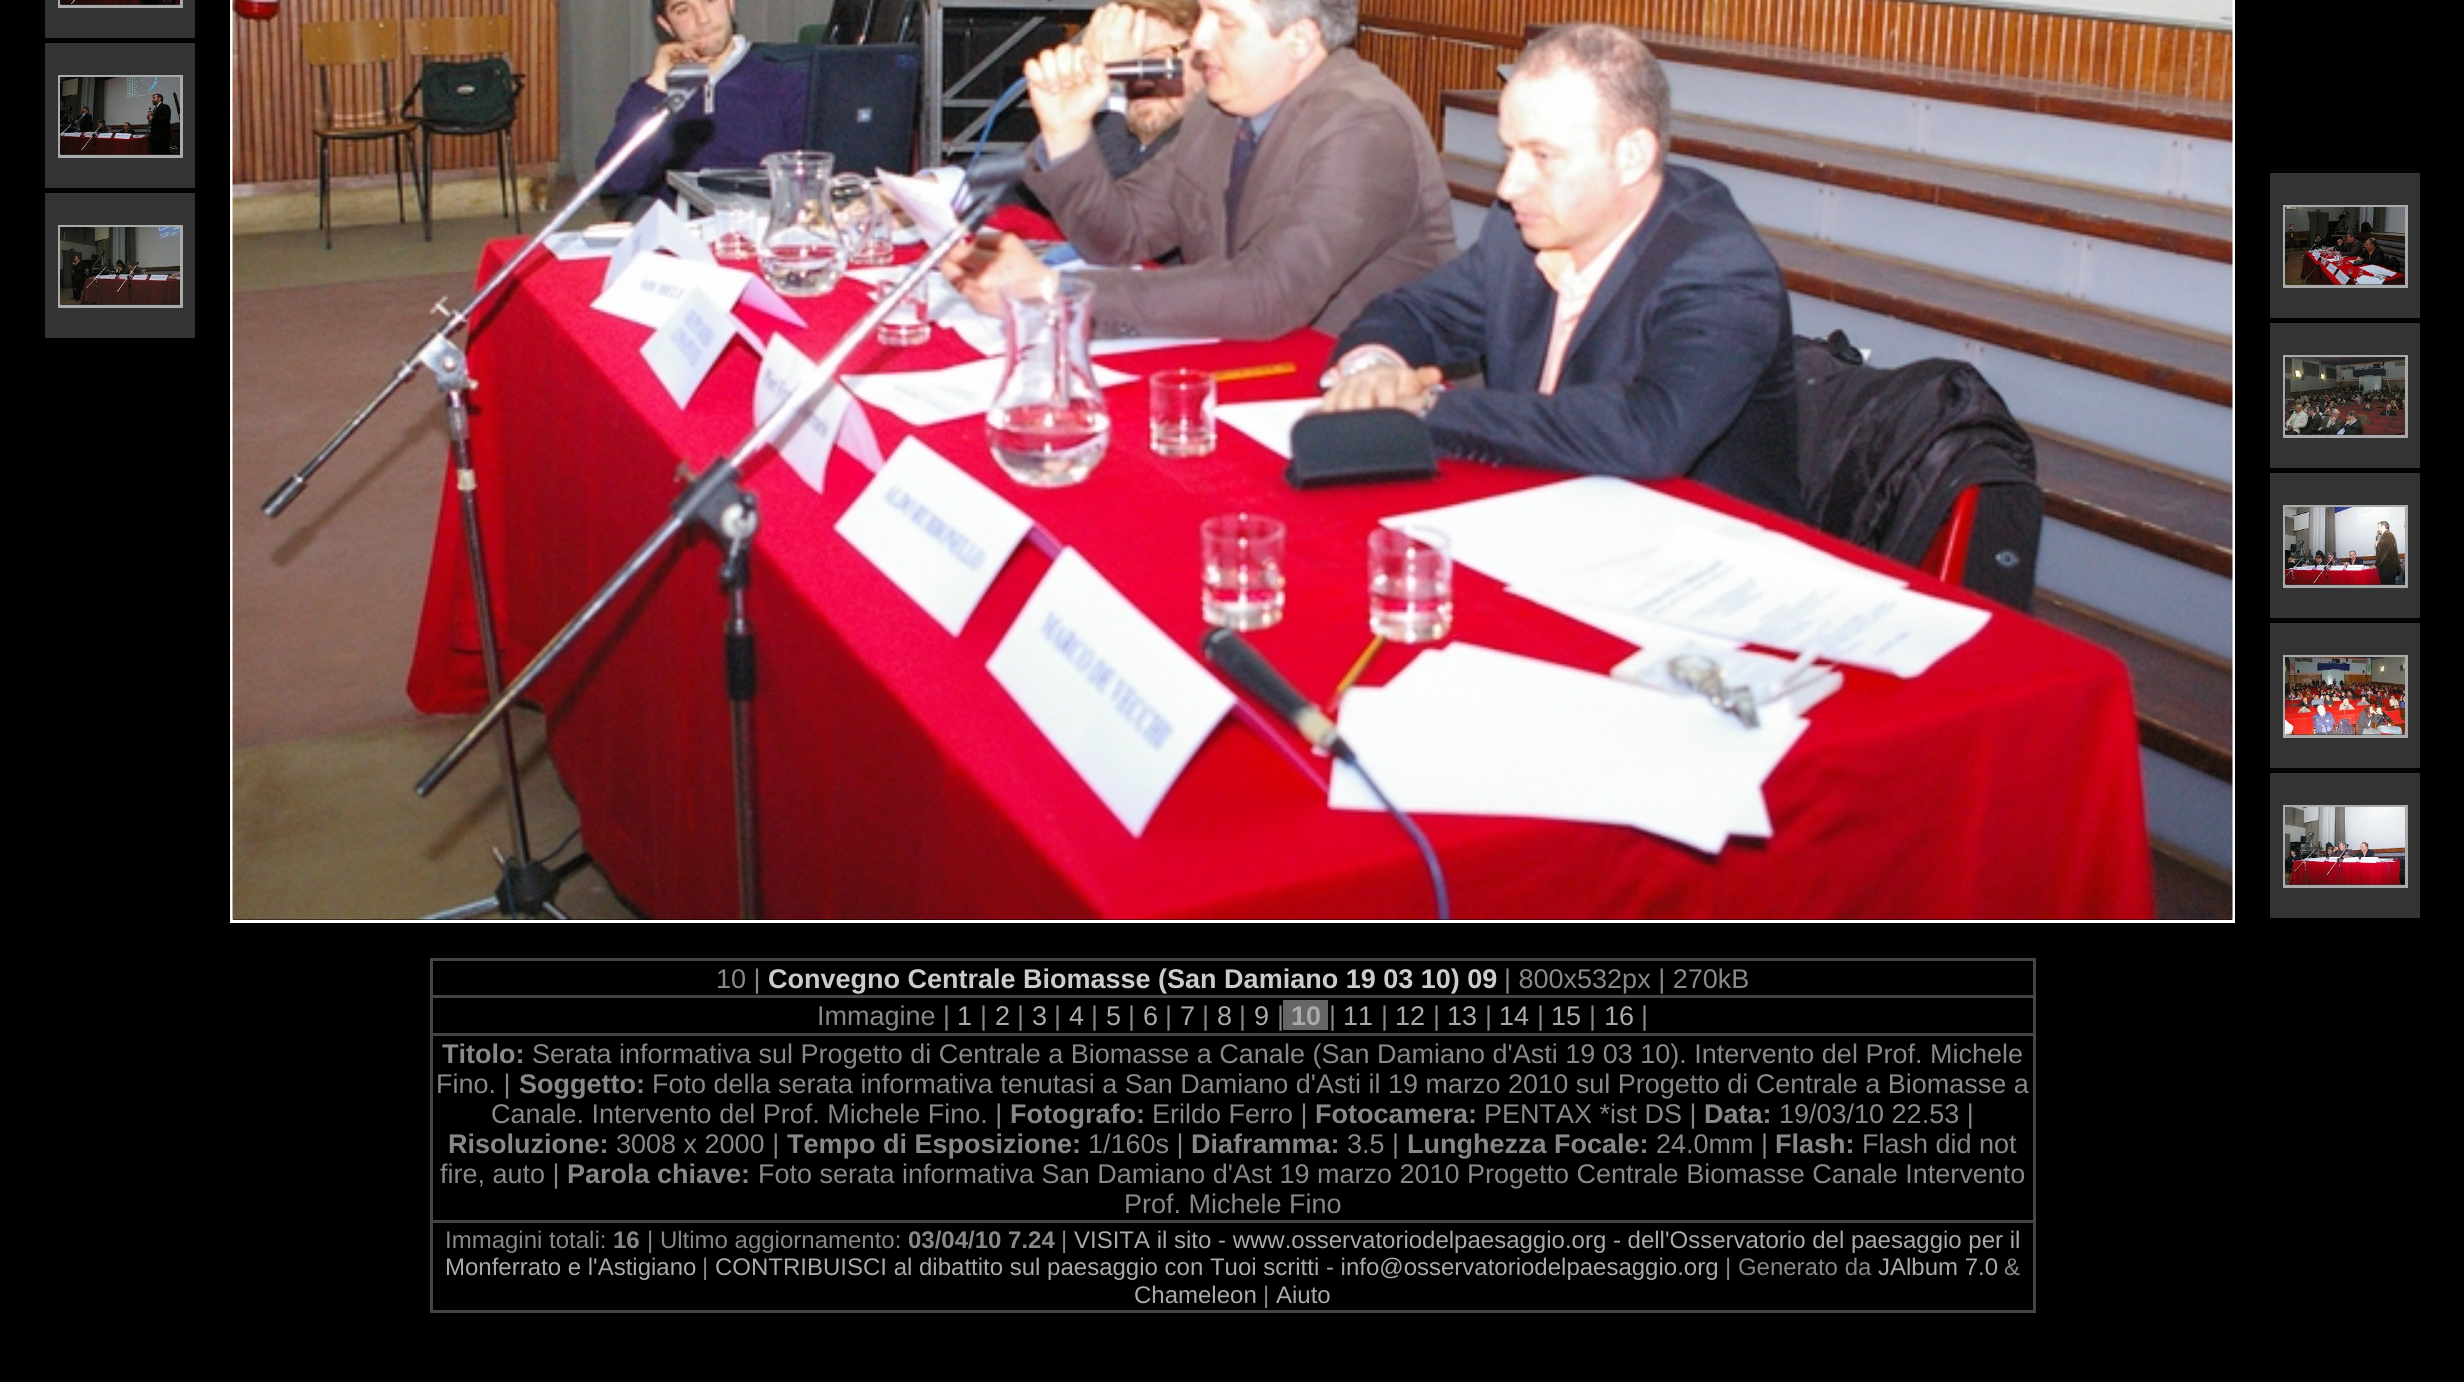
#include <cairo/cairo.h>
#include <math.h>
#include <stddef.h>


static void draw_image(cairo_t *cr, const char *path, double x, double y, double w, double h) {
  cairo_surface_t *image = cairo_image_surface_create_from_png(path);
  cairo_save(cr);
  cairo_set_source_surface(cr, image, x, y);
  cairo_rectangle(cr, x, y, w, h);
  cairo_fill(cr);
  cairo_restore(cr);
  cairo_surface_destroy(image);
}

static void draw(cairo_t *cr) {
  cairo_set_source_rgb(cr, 0, 0, 0);
  cairo_paint(cr);
  cairo_set_source_rgb(cr, 51 / 255.0, 51 / 255.0, 51 / 255.0);
  cairo_rectangle(cr, 45, 0, 150, 38);
  cairo_fill(cr);
  cairo_rectangle(cr, 59.5, -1.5, 122, 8);
  cairo_set_source_rgb(cr, 170 / 255.0, 170 / 255.0, 170 / 255.0);
  cairo_set_line_width(cr, 3);
  cairo_stroke(cr);
  draw_image(cr, "images/1.png", 60, 0, 120, 5);
  cairo_set_source_rgb(cr, 51 / 255.0, 51 / 255.0, 51 / 255.0);
  cairo_rectangle(cr, 45, 43, 150, 145);
  cairo_fill(cr);
  cairo_rectangle(cr, 59.5, 76.5, 122, 80);
  cairo_set_source_rgb(cr, 170 / 255.0, 170 / 255.0, 170 / 255.0);
  cairo_stroke(cr);
  draw_image(cr, "images/2.png", 60, 77, 120, 78);
  cairo_set_source_rgb(cr, 51 / 255.0, 51 / 255.0, 51 / 255.0);
  cairo_rectangle(cr, 45, 193, 150, 145);
  cairo_fill(cr);
  cairo_rectangle(cr, 59.5, 226.5, 122, 80);
  cairo_set_source_rgb(cr, 170 / 255.0, 170 / 255.0, 170 / 255.0);
  cairo_stroke(cr);
  draw_image(cr, "images/3.png", 60, 227, 120, 78);
  cairo_rectangle(cr, 231.5, -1.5, 2002, 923);
  cairo_set_source_rgb(cr, 1, 1, 1);
  cairo_stroke(cr);
  draw_image(cr, "images/4.png", 232, 0, 2001, 920);
  cairo_set_source_rgb(cr, 51 / 255.0, 51 / 255.0, 51 / 255.0);
  cairo_rectangle(cr, 2270, 173, 150, 145);
  cairo_fill(cr);
  cairo_rectangle(cr, 2284.5, 206.5, 122, 80);
  cairo_set_source_rgb(cr, 170 / 255.0, 170 / 255.0, 170 / 255.0);
  cairo_stroke(cr);
  draw_image(cr, "images/5.png", 2285, 207, 120, 78);
  cairo_set_source_rgb(cr, 51 / 255.0, 51 / 255.0, 51 / 255.0);
  cairo_rectangle(cr, 2270, 323, 150, 145);
  cairo_fill(cr);
  cairo_rectangle(cr, 2284.5, 356.5, 122, 80);
  cairo_set_source_rgb(cr, 170 / 255.0, 170 / 255.0, 170 / 255.0);
  cairo_stroke(cr);
  draw_image(cr, "images/6.png", 2285, 357, 120, 78);
  cairo_set_source_rgb(cr, 51 / 255.0, 51 / 255.0, 51 / 255.0);
  cairo_rectangle(cr, 2270, 473, 150, 145);
  cairo_fill(cr);
  cairo_rectangle(cr, 2284.5, 506.5, 122, 80);
  cairo_set_source_rgb(cr, 170 / 255.0, 170 / 255.0, 170 / 255.0);
  cairo_stroke(cr);
  draw_image(cr, "images/7.png", 2285, 507, 120, 78);
  cairo_set_source_rgb(cr, 51 / 255.0, 51 / 255.0, 51 / 255.0);
  cairo_rectangle(cr, 2270, 623, 150, 145);
  cairo_fill(cr);
  cairo_rectangle(cr, 2284.5, 656.5, 122, 80);
  cairo_set_source_rgb(cr, 170 / 255.0, 170 / 255.0, 170 / 255.0);
  cairo_stroke(cr);
  draw_image(cr, "images/8.png", 2285, 657, 120, 78);
  cairo_set_source_rgb(cr, 51 / 255.0, 51 / 255.0, 51 / 255.0);
  cairo_rectangle(cr, 2270, 773, 150, 145);
  cairo_fill(cr);
  cairo_rectangle(cr, 2284.5, 806.5, 122, 80);
  cairo_set_source_rgb(cr, 170 / 255.0, 170 / 255.0, 170 / 255.0);
  cairo_stroke(cr);
  draw_image(cr, "images/9.png", 2285, 807, 120, 78);
  cairo_set_source_rgb(cr, 68 / 255.0, 68 / 255.0, 68 / 255.0);
  cairo_rectangle(cr, 430, 958, 1605, 3);
  cairo_fill(cr);
  cairo_rectangle(cr, 2033, 958, 3, 355);
  cairo_fill(cr);
  cairo_rectangle(cr, 430, 1310, 1605, 3);
  cairo_fill(cr);
  cairo_rectangle(cr, 430, 958, 3, 355);
  cairo_fill(cr);
  cairo_rectangle(cr, 430, 995, 1605, 3);
  cairo_fill(cr);
  cairo_set_source_rgb(cr, 102 / 255.0, 102 / 255.0, 102 / 255.0);
  cairo_rectangle(cr, 1283, 1000, 45, 30);
  cairo_fill(cr);
  cairo_set_source_rgb(cr, 68 / 255.0, 68 / 255.0, 68 / 255.0);
  cairo_rectangle(cr, 430, 1033, 1605, 3);
  cairo_fill(cr);
  cairo_rectangle(cr, 430, 1220, 1605, 3);
  cairo_fill(cr);
  cairo_select_font_face(cr, "Liberation Sans", CAIRO_FONT_SLANT_NORMAL, CAIRO_FONT_WEIGHT_NORMAL);
  cairo_set_font_size(cr, 27);
  cairo_set_source_rgb(cr, 136 / 255.0, 136 / 255.0, 136 / 255.0);
  cairo_move_to(cr, 716, 988);
  cairo_show_text(cr, "10 |");
  cairo_select_font_face(cr, "Liberation Sans", CAIRO_FONT_SLANT_NORMAL, CAIRO_FONT_WEIGHT_BOLD);
  cairo_set_source_rgb(cr, 204 / 255.0, 204 / 255.0, 204 / 255.0);
  cairo_move_to(cr, 768, 988);
  cairo_show_text(cr, "Convegno Centrale Biomasse (San Damiano 19 03 10) 09");
  cairo_select_font_face(cr, "Liberation Sans", CAIRO_FONT_SLANT_NORMAL, CAIRO_FONT_WEIGHT_NORMAL);
  cairo_set_source_rgb(cr, 136 / 255.0, 136 / 255.0, 136 / 255.0);
  cairo_move_to(cr, 1504, 988);
  cairo_show_text(cr, "| 800x532px | 270kB");
  cairo_move_to(cr, 817, 1025);
  cairo_show_text(cr, "Immagine |");
  cairo_set_source_rgb(cr, 170 / 255.0, 170 / 255.0, 170 / 255.0);
  cairo_move_to(cr, 957, 1025);
  cairo_show_text(cr, "1");
  cairo_set_source_rgb(cr, 136 / 255.0, 136 / 255.0, 136 / 255.0);
  cairo_move_to(cr, 980, 1025);
  cairo_show_text(cr, "|");
  cairo_set_source_rgb(cr, 170 / 255.0, 170 / 255.0, 170 / 255.0);
  cairo_move_to(cr, 995, 1025);
  cairo_show_text(cr, "2");
  cairo_set_source_rgb(cr, 136 / 255.0, 136 / 255.0, 136 / 255.0);
  cairo_move_to(cr, 1017, 1025);
  cairo_show_text(cr, "|");
  cairo_set_source_rgb(cr, 170 / 255.0, 170 / 255.0, 170 / 255.0);
  cairo_move_to(cr, 1032, 1025);
  cairo_show_text(cr, "3");
  cairo_set_source_rgb(cr, 136 / 255.0, 136 / 255.0, 136 / 255.0);
  cairo_move_to(cr, 1054, 1025);
  cairo_show_text(cr, "|");
  cairo_set_source_rgb(cr, 170 / 255.0, 170 / 255.0, 170 / 255.0);
  cairo_move_to(cr, 1069, 1025);
  cairo_show_text(cr, "4");
  cairo_set_source_rgb(cr, 136 / 255.0, 136 / 255.0, 136 / 255.0);
  cairo_move_to(cr, 1091, 1025);
  cairo_show_text(cr, "|");
  cairo_set_source_rgb(cr, 170 / 255.0, 170 / 255.0, 170 / 255.0);
  cairo_move_to(cr, 1106, 1025);
  cairo_show_text(cr, "5");
  cairo_set_source_rgb(cr, 136 / 255.0, 136 / 255.0, 136 / 255.0);
  cairo_move_to(cr, 1128, 1025);
  cairo_show_text(cr, "|");
  cairo_set_source_rgb(cr, 170 / 255.0, 170 / 255.0, 170 / 255.0);
  cairo_move_to(cr, 1143, 1025);
  cairo_show_text(cr, "6");
  cairo_set_source_rgb(cr, 136 / 255.0, 136 / 255.0, 136 / 255.0);
  cairo_move_to(cr, 1165, 1025);
  cairo_show_text(cr, "|");
  cairo_set_source_rgb(cr, 170 / 255.0, 170 / 255.0, 170 / 255.0);
  cairo_move_to(cr, 1180, 1025);
  cairo_show_text(cr, "7");
  cairo_set_source_rgb(cr, 136 / 255.0, 136 / 255.0, 136 / 255.0);
  cairo_move_to(cr, 1202, 1025);
  cairo_show_text(cr, "|");
  cairo_set_source_rgb(cr, 170 / 255.0, 170 / 255.0, 170 / 255.0);
  cairo_move_to(cr, 1217, 1025);
  cairo_show_text(cr, "8");
  cairo_set_source_rgb(cr, 136 / 255.0, 136 / 255.0, 136 / 255.0);
  cairo_move_to(cr, 1239, 1025);
  cairo_show_text(cr, "|");
  cairo_set_source_rgb(cr, 170 / 255.0, 170 / 255.0, 170 / 255.0);
  cairo_move_to(cr, 1254, 1025);
  cairo_show_text(cr, "9");
  cairo_set_source_rgb(cr, 136 / 255.0, 136 / 255.0, 136 / 255.0);
  cairo_move_to(cr, 1277, 1025);
  cairo_show_text(cr, "|");
  cairo_select_font_face(cr, "Liberation Sans", CAIRO_FONT_SLANT_NORMAL, CAIRO_FONT_WEIGHT_BOLD);
  cairo_set_source_rgb(cr, 170 / 255.0, 170 / 255.0, 170 / 255.0);
  cairo_move_to(cr, 1291, 1025);
  cairo_show_text(cr, "10");
  cairo_select_font_face(cr, "Liberation Sans", CAIRO_FONT_SLANT_NORMAL, CAIRO_FONT_WEIGHT_NORMAL);
  cairo_set_source_rgb(cr, 136 / 255.0, 136 / 255.0, 136 / 255.0);
  cairo_move_to(cr, 1329, 1025);
  cairo_show_text(cr, "|");
  cairo_set_source_rgb(cr, 170 / 255.0, 170 / 255.0, 170 / 255.0);
  cairo_move_to(cr, 1343, 1025);
  cairo_show_text(cr, "11");
  cairo_set_source_rgb(cr, 136 / 255.0, 136 / 255.0, 136 / 255.0);
  cairo_move_to(cr, 1381, 1025);
  cairo_show_text(cr, "|");
  cairo_set_source_rgb(cr, 170 / 255.0, 170 / 255.0, 170 / 255.0);
  cairo_move_to(cr, 1395, 1025);
  cairo_show_text(cr, "12");
  cairo_set_source_rgb(cr, 136 / 255.0, 136 / 255.0, 136 / 255.0);
  cairo_move_to(cr, 1433, 1025);
  cairo_show_text(cr, "|");
  cairo_set_source_rgb(cr, 170 / 255.0, 170 / 255.0, 170 / 255.0);
  cairo_move_to(cr, 1447, 1025);
  cairo_show_text(cr, "13");
  cairo_set_source_rgb(cr, 136 / 255.0, 136 / 255.0, 136 / 255.0);
  cairo_move_to(cr, 1485, 1025);
  cairo_show_text(cr, "|");
  cairo_set_source_rgb(cr, 170 / 255.0, 170 / 255.0, 170 / 255.0);
  cairo_move_to(cr, 1499, 1025);
  cairo_show_text(cr, "14");
  cairo_set_source_rgb(cr, 136 / 255.0, 136 / 255.0, 136 / 255.0);
  cairo_move_to(cr, 1537, 1025);
  cairo_show_text(cr, "|");
  cairo_set_source_rgb(cr, 170 / 255.0, 170 / 255.0, 170 / 255.0);
  cairo_move_to(cr, 1551, 1025);
  cairo_show_text(cr, "15");
  cairo_set_source_rgb(cr, 136 / 255.0, 136 / 255.0, 136 / 255.0);
  cairo_move_to(cr, 1589, 1025);
  cairo_show_text(cr, "|");
  cairo_set_source_rgb(cr, 170 / 255.0, 170 / 255.0, 170 / 255.0);
  cairo_move_to(cr, 1604, 1025);
  cairo_show_text(cr, "16");
  cairo_set_source_rgb(cr, 136 / 255.0, 136 / 255.0, 136 / 255.0);
  cairo_move_to(cr, 1641, 1025);
  cairo_show_text(cr, "|");
  cairo_select_font_face(cr, "Liberation Sans", CAIRO_FONT_SLANT_NORMAL, CAIRO_FONT_WEIGHT_BOLD);
  cairo_move_to(cr, 442, 1063);
  cairo_show_text(cr, "Titolo:");
  cairo_select_font_face(cr, "Liberation Sans", CAIRO_FONT_SLANT_NORMAL, CAIRO_FONT_WEIGHT_NORMAL);
  cairo_move_to(cr, 532, 1063);
  cairo_show_text(cr, "Serata informativa sul Progetto di Centrale a Biomasse a Canale (San Damiano d'Asti 19 03 10). Intervento del Prof. Michele");
  cairo_move_to(cr, 436, 1093);
  cairo_show_text(cr, "Fino. |");
  cairo_select_font_face(cr, "Liberation Sans", CAIRO_FONT_SLANT_NORMAL, CAIRO_FONT_WEIGHT_BOLD);
  cairo_move_to(cr, 519, 1093);
  cairo_show_text(cr, "Soggetto:");
  cairo_select_font_face(cr, "Liberation Sans", CAIRO_FONT_SLANT_NORMAL, CAIRO_FONT_WEIGHT_NORMAL);
  cairo_move_to(cr, 652, 1093);
  cairo_show_text(cr, "Foto della serata informativa tenutasi a San Damiano d'Asti il 19 marzo 2010 sul Progetto di Centrale a Biomasse a");
  cairo_move_to(cr, 491, 1123);
  cairo_show_text(cr, "Canale. Intervento del Prof. Michele Fino. |");
  cairo_select_font_face(cr, "Liberation Sans", CAIRO_FONT_SLANT_NORMAL, CAIRO_FONT_WEIGHT_BOLD);
  cairo_move_to(cr, 1010, 1123);
  cairo_show_text(cr, "Fotografo:");
  cairo_select_font_face(cr, "Liberation Sans", CAIRO_FONT_SLANT_NORMAL, CAIRO_FONT_WEIGHT_NORMAL);
  cairo_move_to(cr, 1152, 1123);
  cairo_show_text(cr, "Erildo Ferro |");
  cairo_select_font_face(cr, "Liberation Sans", CAIRO_FONT_SLANT_NORMAL, CAIRO_FONT_WEIGHT_BOLD);
  cairo_move_to(cr, 1315, 1123);
  cairo_show_text(cr, "Fotocamera:");
  cairo_select_font_face(cr, "Liberation Sans", CAIRO_FONT_SLANT_NORMAL, CAIRO_FONT_WEIGHT_NORMAL);
  cairo_move_to(cr, 1484, 1123);
  cairo_show_text(cr, "PENTAX *ist DS |");
  cairo_select_font_face(cr, "Liberation Sans", CAIRO_FONT_SLANT_NORMAL, CAIRO_FONT_WEIGHT_BOLD);
  cairo_move_to(cr, 1704, 1123);
  cairo_show_text(cr, "Data:");
  cairo_select_font_face(cr, "Liberation Sans", CAIRO_FONT_SLANT_NORMAL, CAIRO_FONT_WEIGHT_NORMAL);
  cairo_move_to(cr, 1779, 1123);
  cairo_show_text(cr, "19/03/10 22.53 |");
  cairo_select_font_face(cr, "Liberation Sans", CAIRO_FONT_SLANT_NORMAL, CAIRO_FONT_WEIGHT_BOLD);
  cairo_move_to(cr, 448, 1153);
  cairo_show_text(cr, "Risoluzione:");
  cairo_select_font_face(cr, "Liberation Sans", CAIRO_FONT_SLANT_NORMAL, CAIRO_FONT_WEIGHT_NORMAL);
  cairo_move_to(cr, 616, 1153);
  cairo_show_text(cr, "3008 x 2000 |");
  cairo_select_font_face(cr, "Liberation Sans", CAIRO_FONT_SLANT_NORMAL, CAIRO_FONT_WEIGHT_BOLD);
  cairo_move_to(cr, 787, 1153);
  cairo_show_text(cr, "Tempo di Esposizione:");
  cairo_select_font_face(cr, "Liberation Sans", CAIRO_FONT_SLANT_NORMAL, CAIRO_FONT_WEIGHT_NORMAL);
  cairo_move_to(cr, 1088, 1153);
  cairo_show_text(cr, "1/160s |");
  cairo_select_font_face(cr, "Liberation Sans", CAIRO_FONT_SLANT_NORMAL, CAIRO_FONT_WEIGHT_BOLD);
  cairo_move_to(cr, 1191, 1153);
  cairo_show_text(cr, "Diaframma:");
  cairo_select_font_face(cr, "Liberation Sans", CAIRO_FONT_SLANT_NORMAL, CAIRO_FONT_WEIGHT_NORMAL);
  cairo_move_to(cr, 1347, 1153);
  cairo_show_text(cr, "3.5 |");
  cairo_select_font_face(cr, "Liberation Sans", CAIRO_FONT_SLANT_NORMAL, CAIRO_FONT_WEIGHT_BOLD);
  cairo_move_to(cr, 1407, 1153);
  cairo_show_text(cr, "Lunghezza Focale:");
  cairo_select_font_face(cr, "Liberation Sans", CAIRO_FONT_SLANT_NORMAL, CAIRO_FONT_WEIGHT_NORMAL);
  cairo_move_to(cr, 1656, 1153);
  cairo_show_text(cr, "24.0mm |");
  cairo_select_font_face(cr, "Liberation Sans", CAIRO_FONT_SLANT_NORMAL, CAIRO_FONT_WEIGHT_BOLD);
  cairo_move_to(cr, 1775, 1153);
  cairo_show_text(cr, "Flash:");
  cairo_select_font_face(cr, "Liberation Sans", CAIRO_FONT_SLANT_NORMAL, CAIRO_FONT_WEIGHT_NORMAL);
  cairo_move_to(cr, 1862, 1153);
  cairo_show_text(cr, "Flash did not");
  cairo_move_to(cr, 440, 1183);
  cairo_show_text(cr, "fire, auto |");
  cairo_select_font_face(cr, "Liberation Sans", CAIRO_FONT_SLANT_NORMAL, CAIRO_FONT_WEIGHT_BOLD);
  cairo_move_to(cr, 567, 1183);
  cairo_show_text(cr, "Parola chiave:");
  cairo_select_font_face(cr, "Liberation Sans", CAIRO_FONT_SLANT_NORMAL, CAIRO_FONT_WEIGHT_NORMAL);
  cairo_move_to(cr, 758, 1183);
  cairo_show_text(cr, "Foto serata informativa San Damiano d'Ast 19 marzo 2010 Progetto Centrale Biomasse Canale Intervento");
  cairo_move_to(cr, 1124, 1213);
  cairo_show_text(cr, "Prof. Michele Fino");
  cairo_set_font_size(cr, 24);
  cairo_move_to(cr, 445, 1248);
  cairo_show_text(cr, "Immagini totali:");
  cairo_select_font_face(cr, "Liberation Sans", CAIRO_FONT_SLANT_NORMAL, CAIRO_FONT_WEIGHT_BOLD);
  cairo_move_to(cr, 613, 1248);
  cairo_show_text(cr, "16");
  cairo_select_font_face(cr, "Liberation Sans", CAIRO_FONT_SLANT_NORMAL, CAIRO_FONT_WEIGHT_NORMAL);
  cairo_move_to(cr, 647, 1248);
  cairo_show_text(cr, "| Ultimo aggiornamento:");
  cairo_select_font_face(cr, "Liberation Sans", CAIRO_FONT_SLANT_NORMAL, CAIRO_FONT_WEIGHT_BOLD);
  cairo_move_to(cr, 908, 1248);
  cairo_show_text(cr, "03/04/10 7.24");
  cairo_select_font_face(cr, "Liberation Sans", CAIRO_FONT_SLANT_NORMAL, CAIRO_FONT_WEIGHT_NORMAL);
  cairo_move_to(cr, 1061, 1248);
  cairo_show_text(cr, "|");
  cairo_set_source_rgb(cr, 170 / 255.0, 170 / 255.0, 170 / 255.0);
  cairo_move_to(cr, 1074, 1248);
  cairo_show_text(cr, "VISITA il sito - www.osservatoriodelpaesaggio.org - dell'Osservatorio del paesaggio per il");
  cairo_move_to(cr, 445, 1275);
  cairo_show_text(cr, "Monferrato e l'Astigiano");
  cairo_set_source_rgb(cr, 136 / 255.0, 136 / 255.0, 136 / 255.0);
  cairo_move_to(cr, 702, 1275);
  cairo_show_text(cr, "|");
  cairo_set_source_rgb(cr, 170 / 255.0, 170 / 255.0, 170 / 255.0);
  cairo_move_to(cr, 715, 1275);
  cairo_show_text(cr, "CONTRIBUISCI al dibattito sul paesaggio con Tuoi scritti - info@osservatoriodelpaesaggio.org");
  cairo_set_source_rgb(cr, 136 / 255.0, 136 / 255.0, 136 / 255.0);
  cairo_move_to(cr, 1725, 1275);
  cairo_show_text(cr, "| Generato da");
  cairo_set_source_rgb(cr, 170 / 255.0, 170 / 255.0, 170 / 255.0);
  cairo_move_to(cr, 1878, 1275);
  cairo_show_text(cr, "JAlbum 7.0");
  cairo_set_source_rgb(cr, 136 / 255.0, 136 / 255.0, 136 / 255.0);
  cairo_move_to(cr, 2004, 1275);
  cairo_show_text(cr, "&");
  cairo_set_source_rgb(cr, 170 / 255.0, 170 / 255.0, 170 / 255.0);
  cairo_move_to(cr, 1134, 1303);
  cairo_show_text(cr, "Chameleon");
  cairo_set_source_rgb(cr, 136 / 255.0, 136 / 255.0, 136 / 255.0);
  cairo_move_to(cr, 1263, 1303);
  cairo_show_text(cr, "|");
  cairo_set_source_rgb(cr, 170 / 255.0, 170 / 255.0, 170 / 255.0);
  cairo_move_to(cr, 1276, 1303);
  cairo_show_text(cr, "Aiuto");
}

int main(void) {
  cairo_surface_t *surface = cairo_image_surface_create(CAIRO_FORMAT_RGB24, 2464, 1382);
  cairo_t *cr = cairo_create(surface);
  cairo_font_options_t *options = cairo_font_options_create();
  cairo_font_options_set_hint_metrics(options, CAIRO_HINT_METRICS_OFF);
  cairo_font_options_set_hint_style(options, CAIRO_HINT_STYLE_NONE);
  cairo_set_font_options(cr, options);
  cairo_set_miter_limit(cr, 4);
  draw(cr);
  cairo_surface_write_to_png(surface, "out.png");
  cairo_font_options_destroy(options);
  cairo_destroy(cr);
  cairo_surface_destroy(surface);
  return 0;
}
